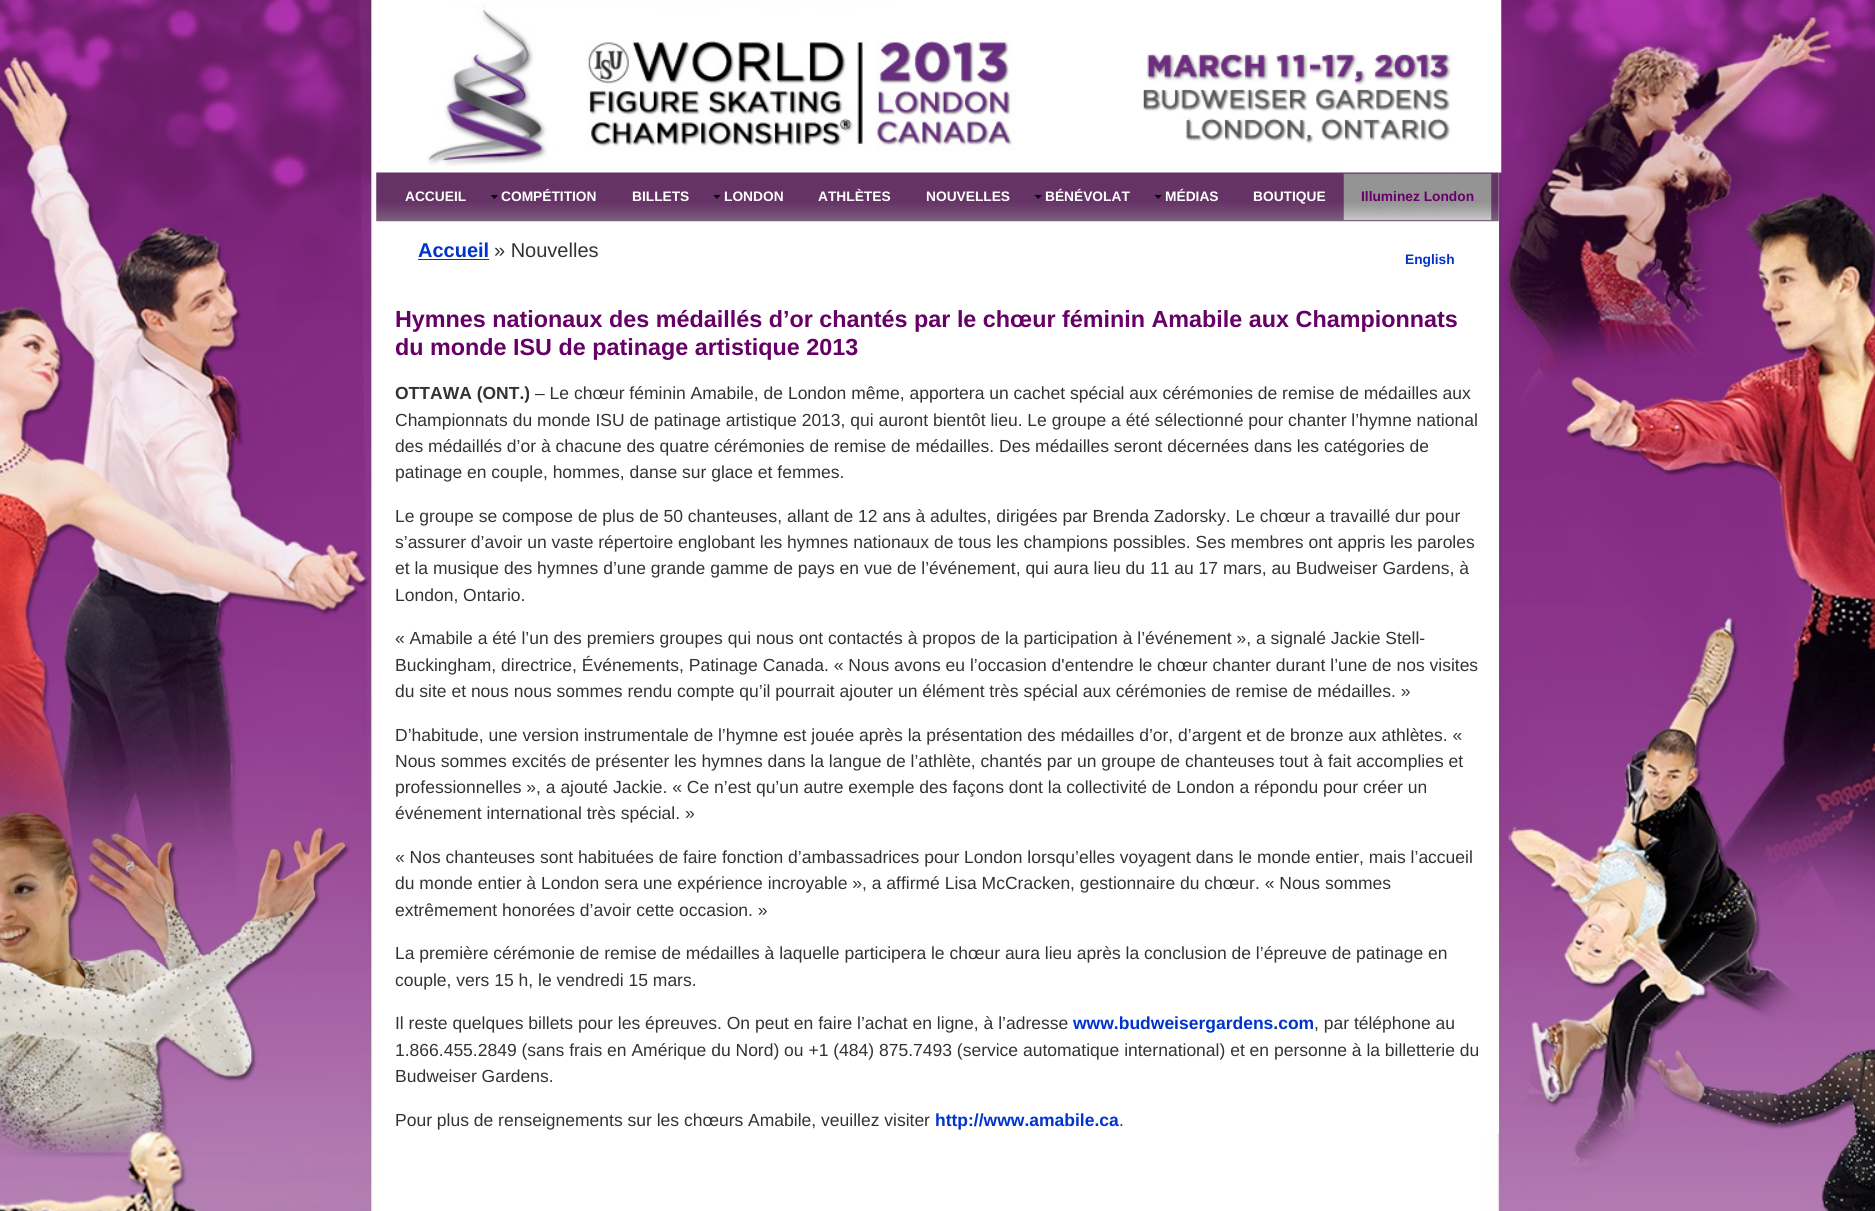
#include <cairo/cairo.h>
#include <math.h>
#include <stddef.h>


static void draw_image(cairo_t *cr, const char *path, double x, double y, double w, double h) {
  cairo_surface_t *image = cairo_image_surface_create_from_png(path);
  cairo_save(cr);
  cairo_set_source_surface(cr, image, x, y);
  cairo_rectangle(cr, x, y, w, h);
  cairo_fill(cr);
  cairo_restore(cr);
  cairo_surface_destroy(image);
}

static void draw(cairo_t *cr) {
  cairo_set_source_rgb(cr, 1, 1, 1);
  cairo_paint(cr);
  draw_image(cr, "images/1.png", 0, 0, 1875, 1211);
  cairo_set_source_rgb(cr, 1, 1, 1);
  cairo_rectangle(cr, 376, 0, 1123, 1133);
  cairo_fill(cr);
  draw_image(cr, "images/2.png", 427, 0, 1075, 173);
  draw_image(cr, "images/3.png", 376, 172, 1123, 50);
  draw_image(cr, "images/4.png", 491, 194, 7, 5);
  draw_image(cr, "images/5.png", 713, 194, 8, 5);
  draw_image(cr, "images/6.png", 1034, 194, 8, 5);
  draw_image(cr, "images/7.png", 1154, 194, 8, 5);
  draw_image(cr, "images/8.png", 1343, 173, 149, 47);
  cairo_set_source_rgb(cr, 0, 51 / 255.0, 204 / 255.0);
  cairo_rectangle(cr, 418, 259, 71, 1);
  cairo_fill(cr);
  cairo_select_font_face(cr, "Liberation Sans", CAIRO_FONT_SLANT_NORMAL, CAIRO_FONT_WEIGHT_BOLD);
  cairo_set_font_size(cr, 13.75);
  cairo_set_source_rgb(cr, 1, 1, 1);
  cairo_move_to(cr, 405, 201);
  cairo_show_text(cr, "ACCUEIL");
  cairo_move_to(cr, 501, 201);
  cairo_show_text(cr, "COMPÉTITION");
  cairo_move_to(cr, 632, 201);
  cairo_show_text(cr, "BILLETS");
  cairo_move_to(cr, 724, 201);
  cairo_show_text(cr, "LONDON");
  cairo_move_to(cr, 818, 201);
  cairo_show_text(cr, "ATHLÈTES");
  cairo_move_to(cr, 926, 201);
  cairo_show_text(cr, "NOUVELLES");
  cairo_move_to(cr, 1045, 201);
  cairo_show_text(cr, "BÉNÉVOLAT");
  cairo_move_to(cr, 1165, 201);
  cairo_show_text(cr, "MÉDIAS");
  cairo_move_to(cr, 1253, 201);
  cairo_show_text(cr, "BOUTIQUE");
  cairo_set_source_rgb(cr, 102 / 255.0, 0, 102 / 255.0);
  cairo_move_to(cr, 1361, 201);
  cairo_show_text(cr, "Illuminez London");
  cairo_set_font_size(cr, 20);
  cairo_set_source_rgb(cr, 0, 51 / 255.0, 204 / 255.0);
  cairo_move_to(cr, 418, 257);
  cairo_show_text(cr, "Accueil");
  cairo_select_font_face(cr, "Liberation Sans", CAIRO_FONT_SLANT_NORMAL, CAIRO_FONT_WEIGHT_NORMAL);
  cairo_set_source_rgb(cr, 51 / 255.0, 51 / 255.0, 51 / 255.0);
  cairo_move_to(cr, 494, 257);
  cairo_show_text(cr, "» Nouvelles");
  cairo_select_font_face(cr, "Liberation Sans", CAIRO_FONT_SLANT_NORMAL, CAIRO_FONT_WEIGHT_BOLD);
  cairo_set_font_size(cr, 13.75);
  cairo_set_source_rgb(cr, 0, 51 / 255.0, 204 / 255.0);
  cairo_move_to(cr, 1405, 264);
  cairo_show_text(cr, "English");
  cairo_set_font_size(cr, 23.35);
  cairo_set_source_rgb(cr, 102 / 255.0, 0, 102 / 255.0);
  cairo_move_to(cr, 395, 327);
  cairo_show_text(cr, "Hymnes nationaux des médaillés d’or chantés par le chœur féminin Amabile aux Championnats");
  cairo_move_to(cr, 395, 355);
  cairo_show_text(cr, "du monde ISU de patinage artistique 2013");
  cairo_set_font_size(cr, 17.5);
  cairo_set_source_rgb(cr, 51 / 255.0, 51 / 255.0, 51 / 255.0);
  cairo_move_to(cr, 395, 399);
  cairo_show_text(cr, "OTTAWA (ONT.)");
  cairo_select_font_face(cr, "Liberation Sans", CAIRO_FONT_SLANT_NORMAL, CAIRO_FONT_WEIGHT_NORMAL);
  cairo_move_to(cr, 535, 399);
  cairo_show_text(cr, "– Le chœur féminin Amabile, de London même, apportera un cachet spécial aux cérémonies de remise de médailles aux");
  cairo_move_to(cr, 395, 426);
  cairo_show_text(cr, "Championnats du monde ISU de patinage artistique 2013, qui auront bientôt lieu. Le groupe a été sélectionné pour chanter l’hymne national");
  cairo_move_to(cr, 395, 452);
  cairo_show_text(cr, "des médaillés d’or à chacune des quatre cérémonies de remise de médailles. Des médailles seront décernées dans les catégories de");
  cairo_move_to(cr, 395, 478);
  cairo_show_text(cr, "patinage en couple, hommes, danse sur glace et femmes.");
  cairo_move_to(cr, 395, 522);
  cairo_show_text(cr, "Le groupe se compose de plus de 50 chanteuses, allant de 12 ans à adultes, dirigées par Brenda Zadorsky. Le chœur a travaillé dur pour");
  cairo_move_to(cr, 395, 548);
  cairo_show_text(cr, "s’assurer d’avoir un vaste répertoire englobant les hymnes nationaux de tous les champions possibles. Ses membres ont appris les paroles");
  cairo_move_to(cr, 395, 574);
  cairo_show_text(cr, "et la musique des hymnes d’une grande gamme de pays en vue de l’événement, qui aura lieu du 11 au 17 mars, au Budweiser Gardens, à");
  cairo_move_to(cr, 395, 601);
  cairo_show_text(cr, "London, Ontario.");
  cairo_move_to(cr, 395, 644);
  cairo_show_text(cr, "« Amabile a été l’un des premiers groupes qui nous ont contactés à propos de la participation à l’événement », a signalé Jackie Stell-");
  cairo_move_to(cr, 395, 671);
  cairo_show_text(cr, "Buckingham, directrice, Événements, Patinage Canada. « Nous avons eu l’occasion d'entendre le chœur chanter durant l’une de nos visites");
  cairo_move_to(cr, 395, 697);
  cairo_show_text(cr, "du site et nous nous sommes rendu compte qu’il pourrait ajouter un élément très spécial aux cérémonies de remise de médailles. »");
  cairo_move_to(cr, 395, 741);
  cairo_show_text(cr, "D’habitude, une version instrumentale de l’hymne est jouée après la présentation des médailles d’or, d’argent et de bronze aux athlètes. «");
  cairo_move_to(cr, 395, 767);
  cairo_show_text(cr, "Nous sommes excités de présenter les hymnes dans la langue de l’athlète, chantés par un groupe de chanteuses tout à fait accomplies et");
  cairo_move_to(cr, 395, 793);
  cairo_show_text(cr, "professionnelles », a ajouté Jackie. « Ce n’est qu’un autre exemple des façons dont la collectivité de London a répondu pour créer un");
  cairo_move_to(cr, 395, 819);
  cairo_show_text(cr, "événement international très spécial. »");
  cairo_move_to(cr, 395, 863);
  cairo_show_text(cr, "« Nos chanteuses sont habituées de faire fonction d’ambassadrices pour London lorsqu’elles voyagent dans le monde entier, mais l’accueil");
  cairo_move_to(cr, 395, 889);
  cairo_show_text(cr, "du monde entier à London sera une expérience incroyable », a affirmé Lisa McCracken, gestionnaire du chœur. « Nous sommes");
  cairo_move_to(cr, 395, 916);
  cairo_show_text(cr, "extrêmement honorées d’avoir cette occasion. »");
  cairo_move_to(cr, 395, 959);
  cairo_show_text(cr, "La première cérémonie de remise de médailles à laquelle participera le chœur aura lieu après la conclusion de l’épreuve de patinage en");
  cairo_move_to(cr, 395, 986);
  cairo_show_text(cr, "couple, vers 15 h, le vendredi 15 mars.");
  cairo_move_to(cr, 395, 1029);
  cairo_show_text(cr, "Il reste quelques billets pour les épreuves. On peut en faire l’achat en ligne, à l’adresse");
  cairo_select_font_face(cr, "Liberation Sans", CAIRO_FONT_SLANT_NORMAL, CAIRO_FONT_WEIGHT_BOLD);
  cairo_set_source_rgb(cr, 0, 51 / 255.0, 204 / 255.0);
  cairo_move_to(cr, 1073, 1029);
  cairo_show_text(cr, "www.budweisergardens.com");
  cairo_select_font_face(cr, "Liberation Sans", CAIRO_FONT_SLANT_NORMAL, CAIRO_FONT_WEIGHT_NORMAL);
  cairo_set_source_rgb(cr, 51 / 255.0, 51 / 255.0, 51 / 255.0);
  cairo_move_to(cr, 1314, 1029);
  cairo_show_text(cr, ", par téléphone au");
  cairo_move_to(cr, 395, 1056);
  cairo_show_text(cr, "1.866.455.2849 (sans frais en Amérique du Nord) ou +1 (484) 875.7493 (service automatique international) et en personne à la billetterie du");
  cairo_move_to(cr, 395, 1082);
  cairo_show_text(cr, "Budweiser Gardens.");
  cairo_move_to(cr, 395, 1126);
  cairo_show_text(cr, "Pour plus de renseignements sur les chœurs Amabile, veuillez visiter");
  cairo_select_font_face(cr, "Liberation Sans", CAIRO_FONT_SLANT_NORMAL, CAIRO_FONT_WEIGHT_BOLD);
  cairo_set_source_rgb(cr, 0, 51 / 255.0, 204 / 255.0);
  cairo_move_to(cr, 935, 1126);
  cairo_show_text(cr, "http://www.amabile.ca");
  cairo_select_font_face(cr, "Liberation Sans", CAIRO_FONT_SLANT_NORMAL, CAIRO_FONT_WEIGHT_NORMAL);
  cairo_set_source_rgb(cr, 51 / 255.0, 51 / 255.0, 51 / 255.0);
  cairo_move_to(cr, 1119, 1126);
  cairo_show_text(cr, ".");
}

int main(void) {
  cairo_surface_t *surface = cairo_image_surface_create(CAIRO_FORMAT_RGB24, 1875, 1211);
  cairo_t *cr = cairo_create(surface);
  cairo_font_options_t *options = cairo_font_options_create();
  cairo_font_options_set_hint_metrics(options, CAIRO_HINT_METRICS_OFF);
  cairo_font_options_set_hint_style(options, CAIRO_HINT_STYLE_NONE);
  cairo_set_font_options(cr, options);
  cairo_set_miter_limit(cr, 4);
  draw(cr);
  cairo_surface_write_to_png(surface, "out.png");
  cairo_font_options_destroy(options);
  cairo_destroy(cr);
  cairo_surface_destroy(surface);
  return 0;
}
